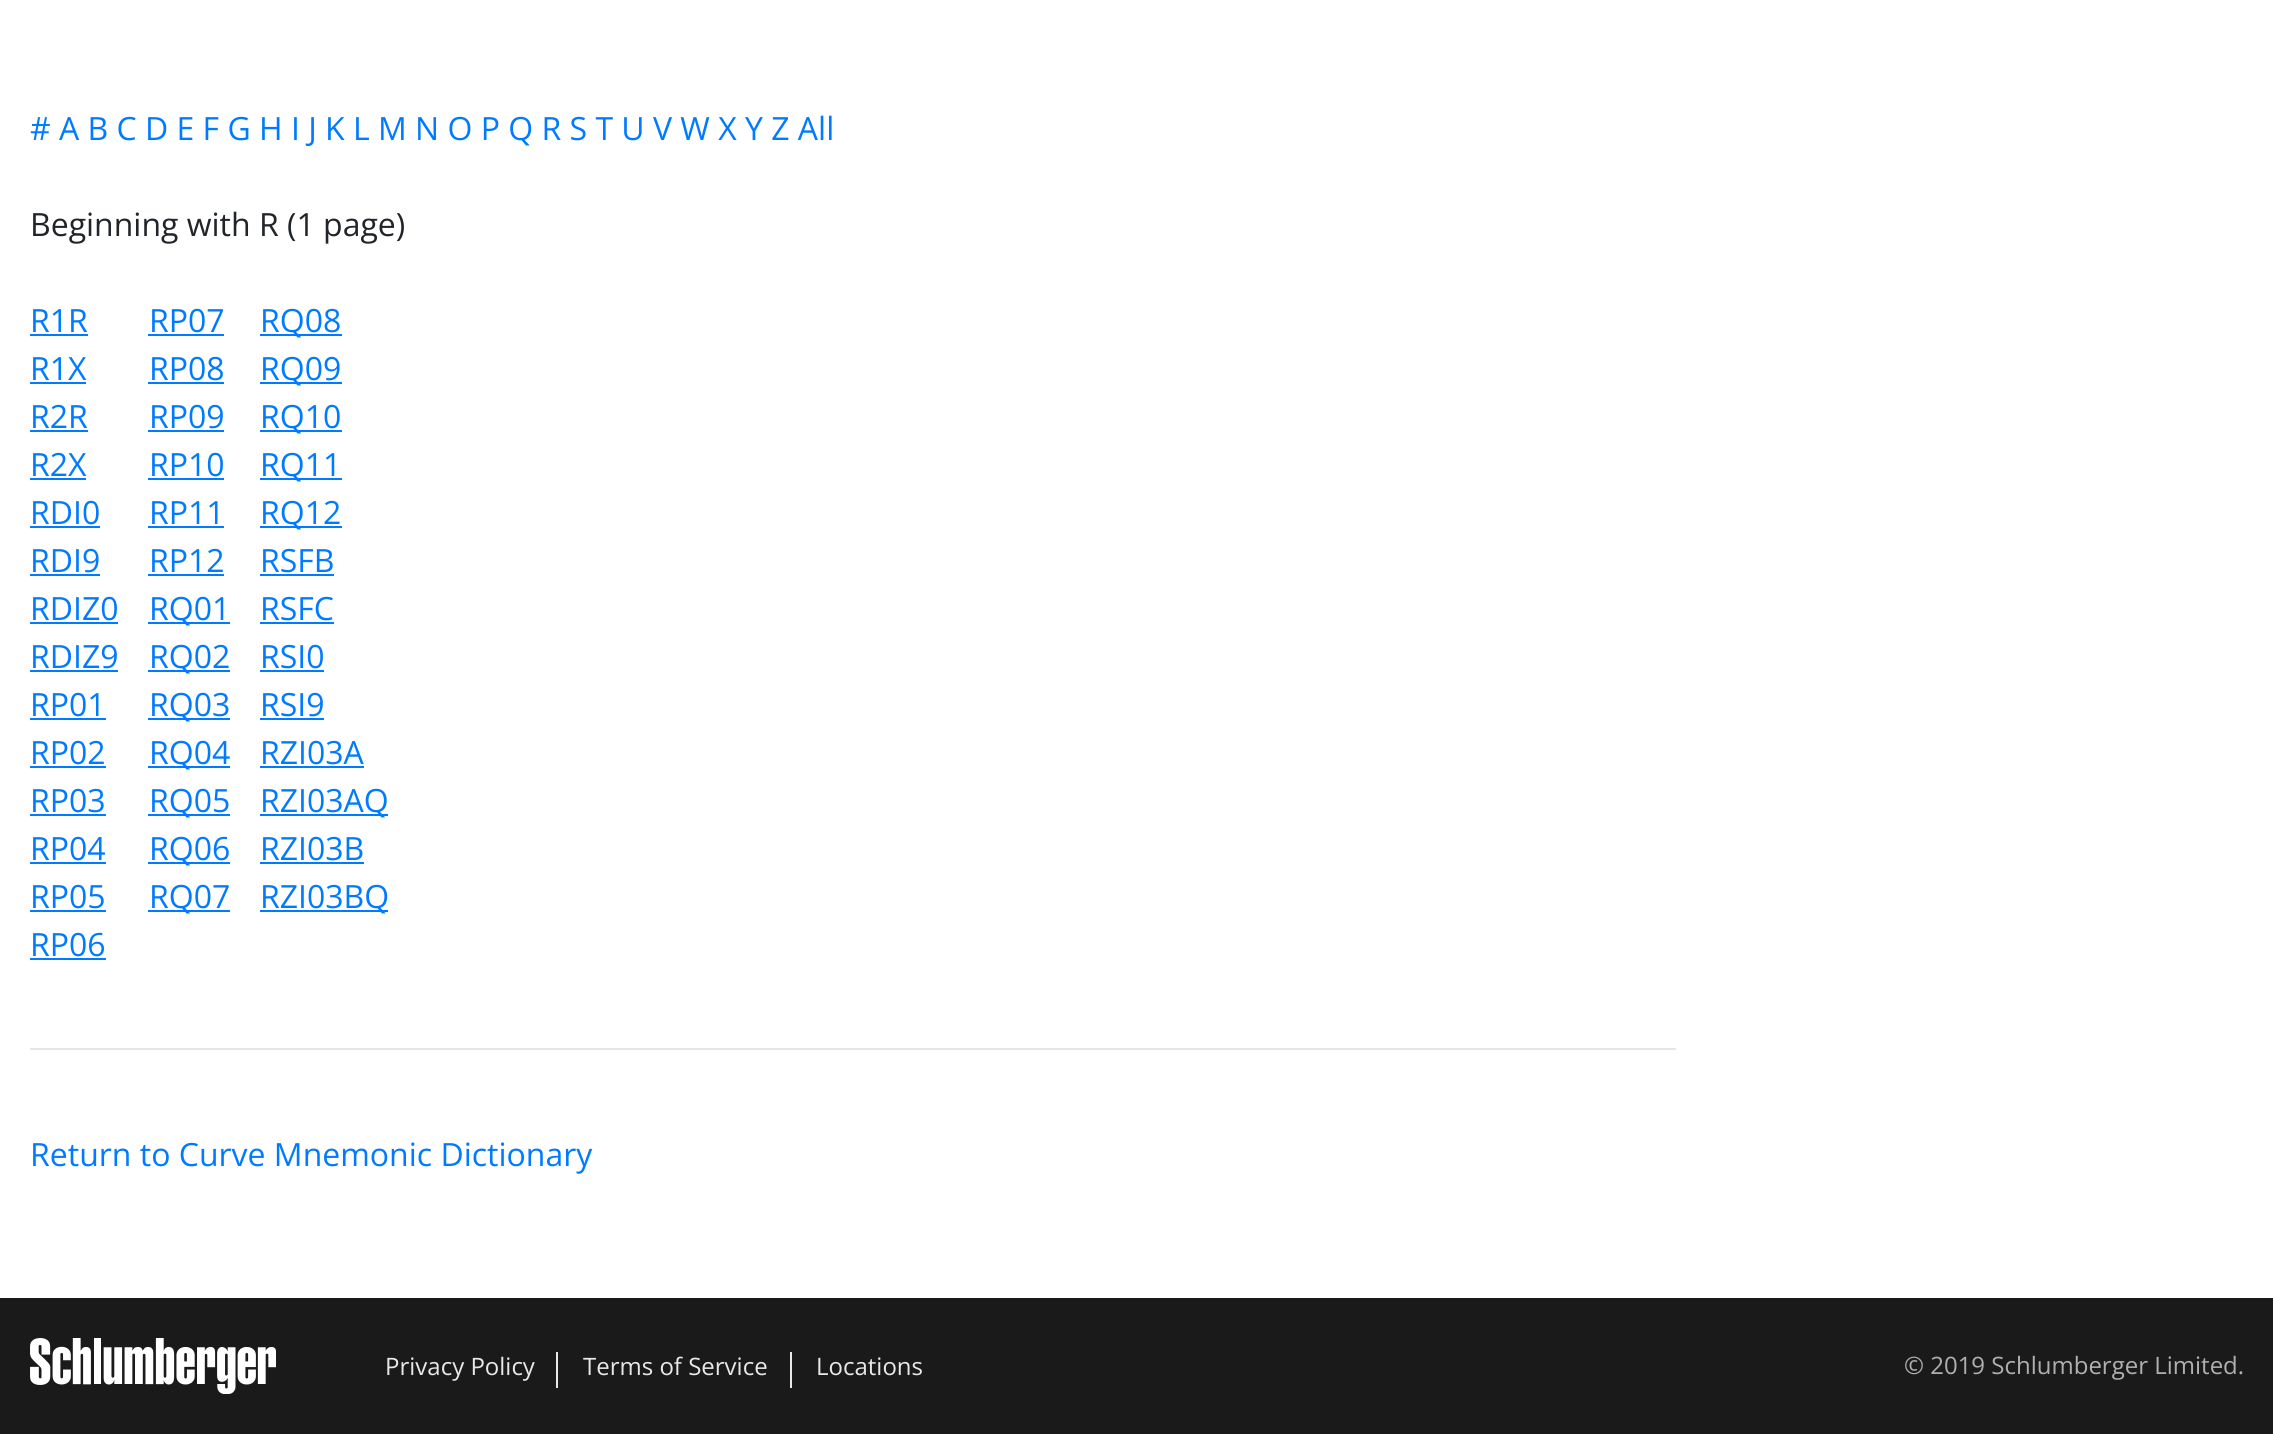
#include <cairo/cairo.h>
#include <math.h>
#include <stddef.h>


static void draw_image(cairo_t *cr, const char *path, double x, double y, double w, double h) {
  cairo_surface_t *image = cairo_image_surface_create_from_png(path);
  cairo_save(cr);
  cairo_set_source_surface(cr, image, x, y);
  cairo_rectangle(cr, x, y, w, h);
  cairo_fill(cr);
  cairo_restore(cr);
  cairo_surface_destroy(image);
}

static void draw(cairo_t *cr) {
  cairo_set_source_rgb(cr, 26 / 255.0, 26 / 255.0, 26 / 255.0);
  cairo_paint(cr);
  cairo_set_source_rgb(cr, 1, 1, 1);
  cairo_rectangle(cr, 0, 0, 2273, 1298);
  cairo_fill(cr);
  cairo_set_source_rgb(cr, 0, 123 / 255.0, 1);
  cairo_rectangle(cr, 30, 334, 58, 2);
  cairo_fill(cr);
  cairo_rectangle(cr, 148, 334, 76, 2);
  cairo_fill(cr);
  cairo_rectangle(cr, 260, 334, 82, 2);
  cairo_fill(cr);
  cairo_rectangle(cr, 30, 382, 56, 2);
  cairo_fill(cr);
  cairo_rectangle(cr, 148, 382, 76, 2);
  cairo_fill(cr);
  cairo_rectangle(cr, 260, 382, 82, 2);
  cairo_fill(cr);
  cairo_rectangle(cr, 30, 430, 58, 2);
  cairo_fill(cr);
  cairo_rectangle(cr, 148, 430, 76, 2);
  cairo_fill(cr);
  cairo_rectangle(cr, 260, 430, 82, 2);
  cairo_fill(cr);
  cairo_rectangle(cr, 30, 478, 56, 2);
  cairo_fill(cr);
  cairo_rectangle(cr, 148, 478, 76, 2);
  cairo_fill(cr);
  cairo_rectangle(cr, 260, 478, 82, 2);
  cairo_fill(cr);
  cairo_rectangle(cr, 30, 526, 70, 2);
  cairo_fill(cr);
  cairo_rectangle(cr, 148, 526, 76, 2);
  cairo_fill(cr);
  cairo_rectangle(cr, 260, 526, 82, 2);
  cairo_fill(cr);
  cairo_rectangle(cr, 30, 574, 70, 2);
  cairo_fill(cr);
  cairo_rectangle(cr, 148, 574, 76, 2);
  cairo_fill(cr);
  cairo_rectangle(cr, 260, 574, 74, 2);
  cairo_fill(cr);
  cairo_rectangle(cr, 30, 622, 88, 2);
  cairo_fill(cr);
  cairo_rectangle(cr, 148, 622, 82, 2);
  cairo_fill(cr);
  cairo_rectangle(cr, 260, 622, 74, 2);
  cairo_fill(cr);
  cairo_rectangle(cr, 30, 670, 88, 2);
  cairo_fill(cr);
  cairo_rectangle(cr, 148, 670, 82, 2);
  cairo_fill(cr);
  cairo_rectangle(cr, 260, 670, 64, 2);
  cairo_fill(cr);
  cairo_rectangle(cr, 30, 718, 76, 2);
  cairo_fill(cr);
  cairo_rectangle(cr, 148, 718, 82, 2);
  cairo_fill(cr);
  cairo_rectangle(cr, 260, 718, 64, 2);
  cairo_fill(cr);
  cairo_rectangle(cr, 30, 766, 76, 2);
  cairo_fill(cr);
  cairo_rectangle(cr, 148, 766, 82, 2);
  cairo_fill(cr);
  cairo_rectangle(cr, 260, 766, 104, 2);
  cairo_fill(cr);
  cairo_rectangle(cr, 30, 814, 76, 2);
  cairo_fill(cr);
  cairo_rectangle(cr, 148, 814, 82, 2);
  cairo_fill(cr);
  cairo_rectangle(cr, 260, 814, 128, 2);
  cairo_fill(cr);
  cairo_rectangle(cr, 30, 862, 76, 2);
  cairo_fill(cr);
  cairo_rectangle(cr, 148, 862, 82, 2);
  cairo_fill(cr);
  cairo_rectangle(cr, 260, 862, 104, 2);
  cairo_fill(cr);
  cairo_rectangle(cr, 30, 910, 76, 2);
  cairo_fill(cr);
  cairo_rectangle(cr, 148, 910, 82, 2);
  cairo_fill(cr);
  cairo_rectangle(cr, 260, 910, 128, 2);
  cairo_fill(cr);
  cairo_rectangle(cr, 30, 958, 76, 2);
  cairo_fill(cr);
  cairo_set_source_rgb(cr, 230 / 255.0, 230 / 255.0, 230 / 255.0);
  cairo_rectangle(cr, 30, 1048, 1646, 2);
  cairo_fill(cr);
  draw_image(cr, "images/1.png", 30, 1338, 246, 56);
  cairo_set_source_rgb(cr, 232 / 255.0, 232 / 255.0, 232 / 255.0);
  cairo_rectangle(cr, 556, 1352, 2, 36);
  cairo_fill(cr);
  cairo_rectangle(cr, 790, 1352, 2, 36);
  cairo_fill(cr);
  cairo_select_font_face(cr, "Open Sans", CAIRO_FONT_SLANT_NORMAL, CAIRO_FONT_WEIGHT_NORMAL);
  cairo_set_font_size(cr, 32);
  cairo_set_source_rgb(cr, 0, 123 / 255.0, 1);
  cairo_move_to(cr, 30, 140);
  cairo_show_text(cr, "# A B C D E F G H I J K L M N O P Q R S T U V W X Y Z All");
  cairo_set_source_rgb(cr, 33 / 255.0, 37 / 255.0, 41 / 255.0);
  cairo_move_to(cr, 30, 236);
  cairo_show_text(cr, "Beginning with R (1 page)");
  cairo_set_source_rgb(cr, 0, 123 / 255.0, 1);
  cairo_move_to(cr, 30, 332);
  cairo_show_text(cr, "R1R");
  cairo_move_to(cr, 149, 332);
  cairo_show_text(cr, "RP07");
  cairo_move_to(cr, 260, 332);
  cairo_show_text(cr, "RQ08");
  cairo_move_to(cr, 30, 380);
  cairo_show_text(cr, "R1X");
  cairo_move_to(cr, 149, 380);
  cairo_show_text(cr, "RP08");
  cairo_move_to(cr, 260, 380);
  cairo_show_text(cr, "RQ09");
  cairo_move_to(cr, 30, 428);
  cairo_show_text(cr, "R2R");
  cairo_move_to(cr, 149, 428);
  cairo_show_text(cr, "RP09");
  cairo_move_to(cr, 260, 428);
  cairo_show_text(cr, "RQ10");
  cairo_move_to(cr, 30, 476);
  cairo_show_text(cr, "R2X");
  cairo_move_to(cr, 149, 476);
  cairo_show_text(cr, "RP10");
  cairo_move_to(cr, 260, 476);
  cairo_show_text(cr, "RQ11");
  cairo_move_to(cr, 30, 524);
  cairo_show_text(cr, "RDI0");
  cairo_move_to(cr, 149, 524);
  cairo_show_text(cr, "RP11");
  cairo_move_to(cr, 260, 524);
  cairo_show_text(cr, "RQ12");
  cairo_move_to(cr, 30, 572);
  cairo_show_text(cr, "RDI9");
  cairo_move_to(cr, 149, 572);
  cairo_show_text(cr, "RP12");
  cairo_move_to(cr, 260, 572);
  cairo_show_text(cr, "RSFB");
  cairo_move_to(cr, 30, 620);
  cairo_show_text(cr, "RDIZ0");
  cairo_move_to(cr, 149, 620);
  cairo_show_text(cr, "RQ01");
  cairo_move_to(cr, 260, 620);
  cairo_show_text(cr, "RSFC");
  cairo_move_to(cr, 30, 668);
  cairo_show_text(cr, "RDIZ9");
  cairo_move_to(cr, 149, 668);
  cairo_show_text(cr, "RQ02");
  cairo_move_to(cr, 260, 668);
  cairo_show_text(cr, "RSI0");
  cairo_move_to(cr, 30, 716);
  cairo_show_text(cr, "RP01");
  cairo_move_to(cr, 149, 716);
  cairo_show_text(cr, "RQ03");
  cairo_move_to(cr, 260, 716);
  cairo_show_text(cr, "RSI9");
  cairo_move_to(cr, 30, 764);
  cairo_show_text(cr, "RP02");
  cairo_move_to(cr, 149, 764);
  cairo_show_text(cr, "RQ04");
  cairo_move_to(cr, 260, 764);
  cairo_show_text(cr, "RZI03A");
  cairo_move_to(cr, 30, 812);
  cairo_show_text(cr, "RP03");
  cairo_move_to(cr, 149, 812);
  cairo_show_text(cr, "RQ05");
  cairo_move_to(cr, 260, 812);
  cairo_show_text(cr, "RZI03AQ");
  cairo_move_to(cr, 30, 860);
  cairo_show_text(cr, "RP04");
  cairo_move_to(cr, 149, 860);
  cairo_show_text(cr, "RQ06");
  cairo_move_to(cr, 260, 860);
  cairo_show_text(cr, "RZI03B");
  cairo_move_to(cr, 30, 908);
  cairo_show_text(cr, "RP05");
  cairo_move_to(cr, 149, 908);
  cairo_show_text(cr, "RQ07");
  cairo_move_to(cr, 260, 908);
  cairo_show_text(cr, "RZI03BQ");
  cairo_move_to(cr, 30, 956);
  cairo_show_text(cr, "RP06");
  cairo_move_to(cr, 30, 1166);
  cairo_show_text(cr, "Return to Curve Mnemonic Dictionary");
  cairo_set_font_size(cr, 24);
  cairo_set_source_rgb(cr, 232 / 255.0, 232 / 255.0, 232 / 255.0);
  cairo_move_to(cr, 385, 1375);
  cairo_show_text(cr, "Privacy Policy");
  cairo_move_to(cr, 583, 1375);
  cairo_show_text(cr, "Terms of Service");
  cairo_move_to(cr, 816, 1375);
  cairo_show_text(cr, "Locations");
  cairo_set_source_rgb(cr, 175 / 255.0, 175 / 255.0, 175 / 255.0);
  cairo_move_to(cr, 1904, 1374);
  cairo_show_text(cr, "© 2019 Schlumberger Limited.");
}

int main(void) {
  cairo_surface_t *surface = cairo_image_surface_create(CAIRO_FORMAT_RGB24, 2273, 1434);
  cairo_t *cr = cairo_create(surface);
  cairo_font_options_t *options = cairo_font_options_create();
  cairo_font_options_set_hint_metrics(options, CAIRO_HINT_METRICS_OFF);
  cairo_font_options_set_hint_style(options, CAIRO_HINT_STYLE_NONE);
  cairo_set_font_options(cr, options);
  cairo_set_miter_limit(cr, 4);
  draw(cr);
  cairo_surface_write_to_png(surface, "out.png");
  cairo_font_options_destroy(options);
  cairo_destroy(cr);
  cairo_surface_destroy(surface);
  return 0;
}
